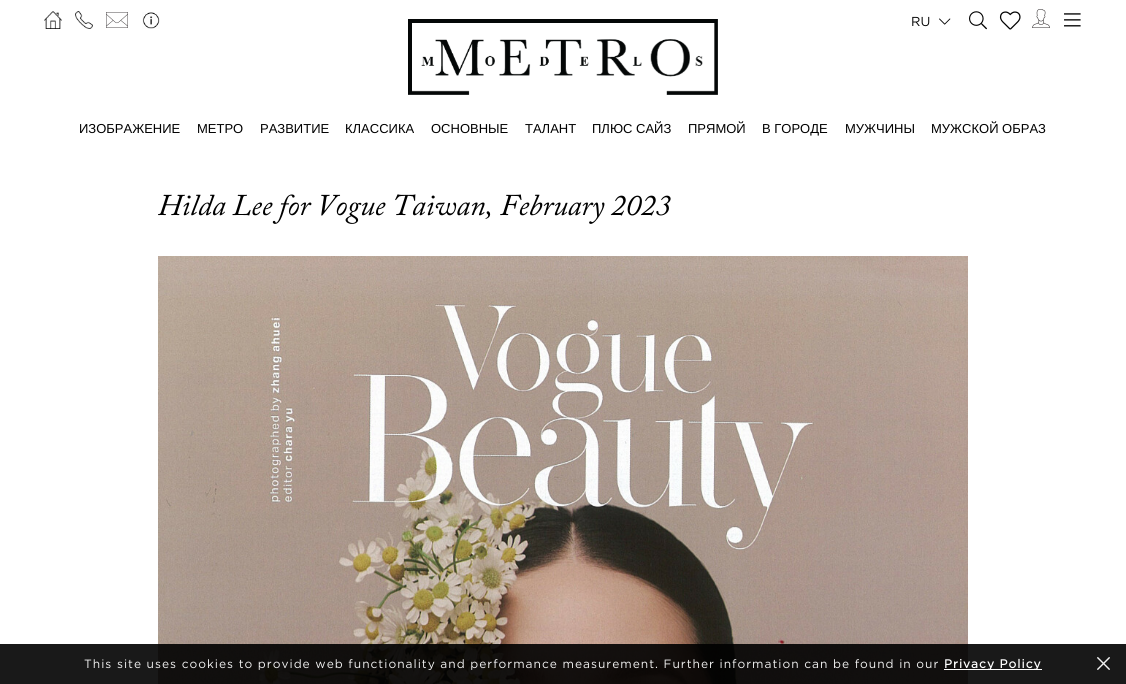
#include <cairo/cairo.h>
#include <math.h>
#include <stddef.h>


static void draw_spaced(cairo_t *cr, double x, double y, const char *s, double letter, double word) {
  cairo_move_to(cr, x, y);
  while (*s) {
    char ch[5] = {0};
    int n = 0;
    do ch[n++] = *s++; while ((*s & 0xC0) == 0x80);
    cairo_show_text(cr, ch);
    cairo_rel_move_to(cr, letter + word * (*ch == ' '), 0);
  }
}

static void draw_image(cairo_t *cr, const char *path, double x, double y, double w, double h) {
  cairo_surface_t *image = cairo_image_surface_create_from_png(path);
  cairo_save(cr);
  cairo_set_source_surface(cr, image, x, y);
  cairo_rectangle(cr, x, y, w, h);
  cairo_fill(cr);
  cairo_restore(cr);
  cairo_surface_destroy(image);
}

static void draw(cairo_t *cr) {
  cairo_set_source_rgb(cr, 1, 1, 1);
  cairo_paint(cr);
  draw_image(cr, "images/1.png", 44, 11, 18, 18);
  draw_image(cr, "images/2.png", 75, 11, 18, 18);
  draw_image(cr, "images/3.png", 106, 12, 22, 16);
  draw_image(cr, "images/4.png", 142, 12, 18, 17);
  draw_image(cr, "images/5.png", 408, 19, 310, 76);
  draw_image(cr, "images/6.png", 939, 18, 12, 7);
  draw_image(cr, "images/7.png", 969, 11, 18, 19);
  draw_image(cr, "images/8.png", 999, 11, 22, 19);
  draw_image(cr, "images/9.png", 1032, 9, 18, 19);
  draw_image(cr, "images/10.png", 1064, 13, 17, 14);
  draw_image(cr, "images/11.png", 158, 194, 115, 22);
  draw_image(cr, "images/12.png", 272, 194, 399, 30);
  draw_image(cr, "images/13.png", 158, 256, 810, 428);
  cairo_set_source_rgba(cr, 0, 0, 0, 0.9);
  cairo_rectangle(cr, 0, 644, 1126, 40);
  cairo_fill(cr);
  cairo_set_source_rgb(cr, 1, 1, 1);
  cairo_rectangle(cr, 944, 669, 98, 1);
  cairo_fill(cr);
  draw_image(cr, "images/14.png", 1097, 657, 13, 13);
  cairo_select_font_face(cr, "Gotham", CAIRO_FONT_SLANT_NORMAL, CAIRO_FONT_WEIGHT_NORMAL);
  cairo_set_font_size(cr, 13);
  cairo_set_source_rgb(cr, 0, 0, 0);
  cairo_move_to(cr, 911, 26);
  cairo_show_text(cr, "RU");
  cairo_select_font_face(cr, "Liberation Sans", CAIRO_FONT_SLANT_NORMAL, CAIRO_FONT_WEIGHT_NORMAL);
  cairo_move_to(cr, 79, 133);
  cairo_show_text(cr, "ИЗОБРАЖЕНИЕ");
  cairo_move_to(cr, 197, 133);
  cairo_show_text(cr, "МЕТРО");
  cairo_move_to(cr, 260, 133);
  cairo_show_text(cr, "РАЗВИТИЕ");
  cairo_move_to(cr, 345, 133);
  cairo_show_text(cr, "КЛАССИКА");
  cairo_move_to(cr, 431, 133);
  cairo_show_text(cr, "ОСНОВНЫЕ");
  cairo_move_to(cr, 525, 133);
  cairo_show_text(cr, "ТАЛАНТ");
  cairo_move_to(cr, 592, 133);
  cairo_show_text(cr, "ПЛЮС САЙЗ");
  cairo_move_to(cr, 688, 133);
  cairo_show_text(cr, "ПРЯМОЙ");
  cairo_move_to(cr, 762, 133);
  cairo_show_text(cr, "В ГОРОДЕ");
  cairo_move_to(cr, 845, 133);
  cairo_show_text(cr, "МУЖЧИНЫ");
  cairo_move_to(cr, 931, 133);
  cairo_show_text(cr, "МУЖСКОЙ ОБРАЗ");
  cairo_select_font_face(cr, "Gotham", CAIRO_FONT_SLANT_NORMAL, CAIRO_FONT_WEIGHT_NORMAL);
  cairo_set_font_size(cr, 12);
  cairo_set_source_rgb(cr, 242 / 255.0, 242 / 255.0, 242 / 255.0);
  draw_spaced(cr, 84, 668, "This site uses cookies to provide web functionality and performance measurement. Further information can be found in our", 1, 0);
  cairo_select_font_face(cr, "Gotham", CAIRO_FONT_SLANT_NORMAL, CAIRO_FONT_WEIGHT_BOLD);
  cairo_set_source_rgb(cr, 1, 1, 1);
  draw_spaced(cr, 944, 668, "Privacy Policy", 1, 0);
}

int main(void) {
  cairo_surface_t *surface = cairo_image_surface_create(CAIRO_FORMAT_RGB24, 1126, 684);
  cairo_t *cr = cairo_create(surface);
  cairo_font_options_t *options = cairo_font_options_create();
  cairo_font_options_set_hint_metrics(options, CAIRO_HINT_METRICS_OFF);
  cairo_font_options_set_hint_style(options, CAIRO_HINT_STYLE_NONE);
  cairo_set_font_options(cr, options);
  cairo_set_miter_limit(cr, 4);
  draw(cr);
  cairo_surface_write_to_png(surface, "out.png");
  cairo_font_options_destroy(options);
  cairo_destroy(cr);
  cairo_surface_destroy(surface);
  return 0;
}
